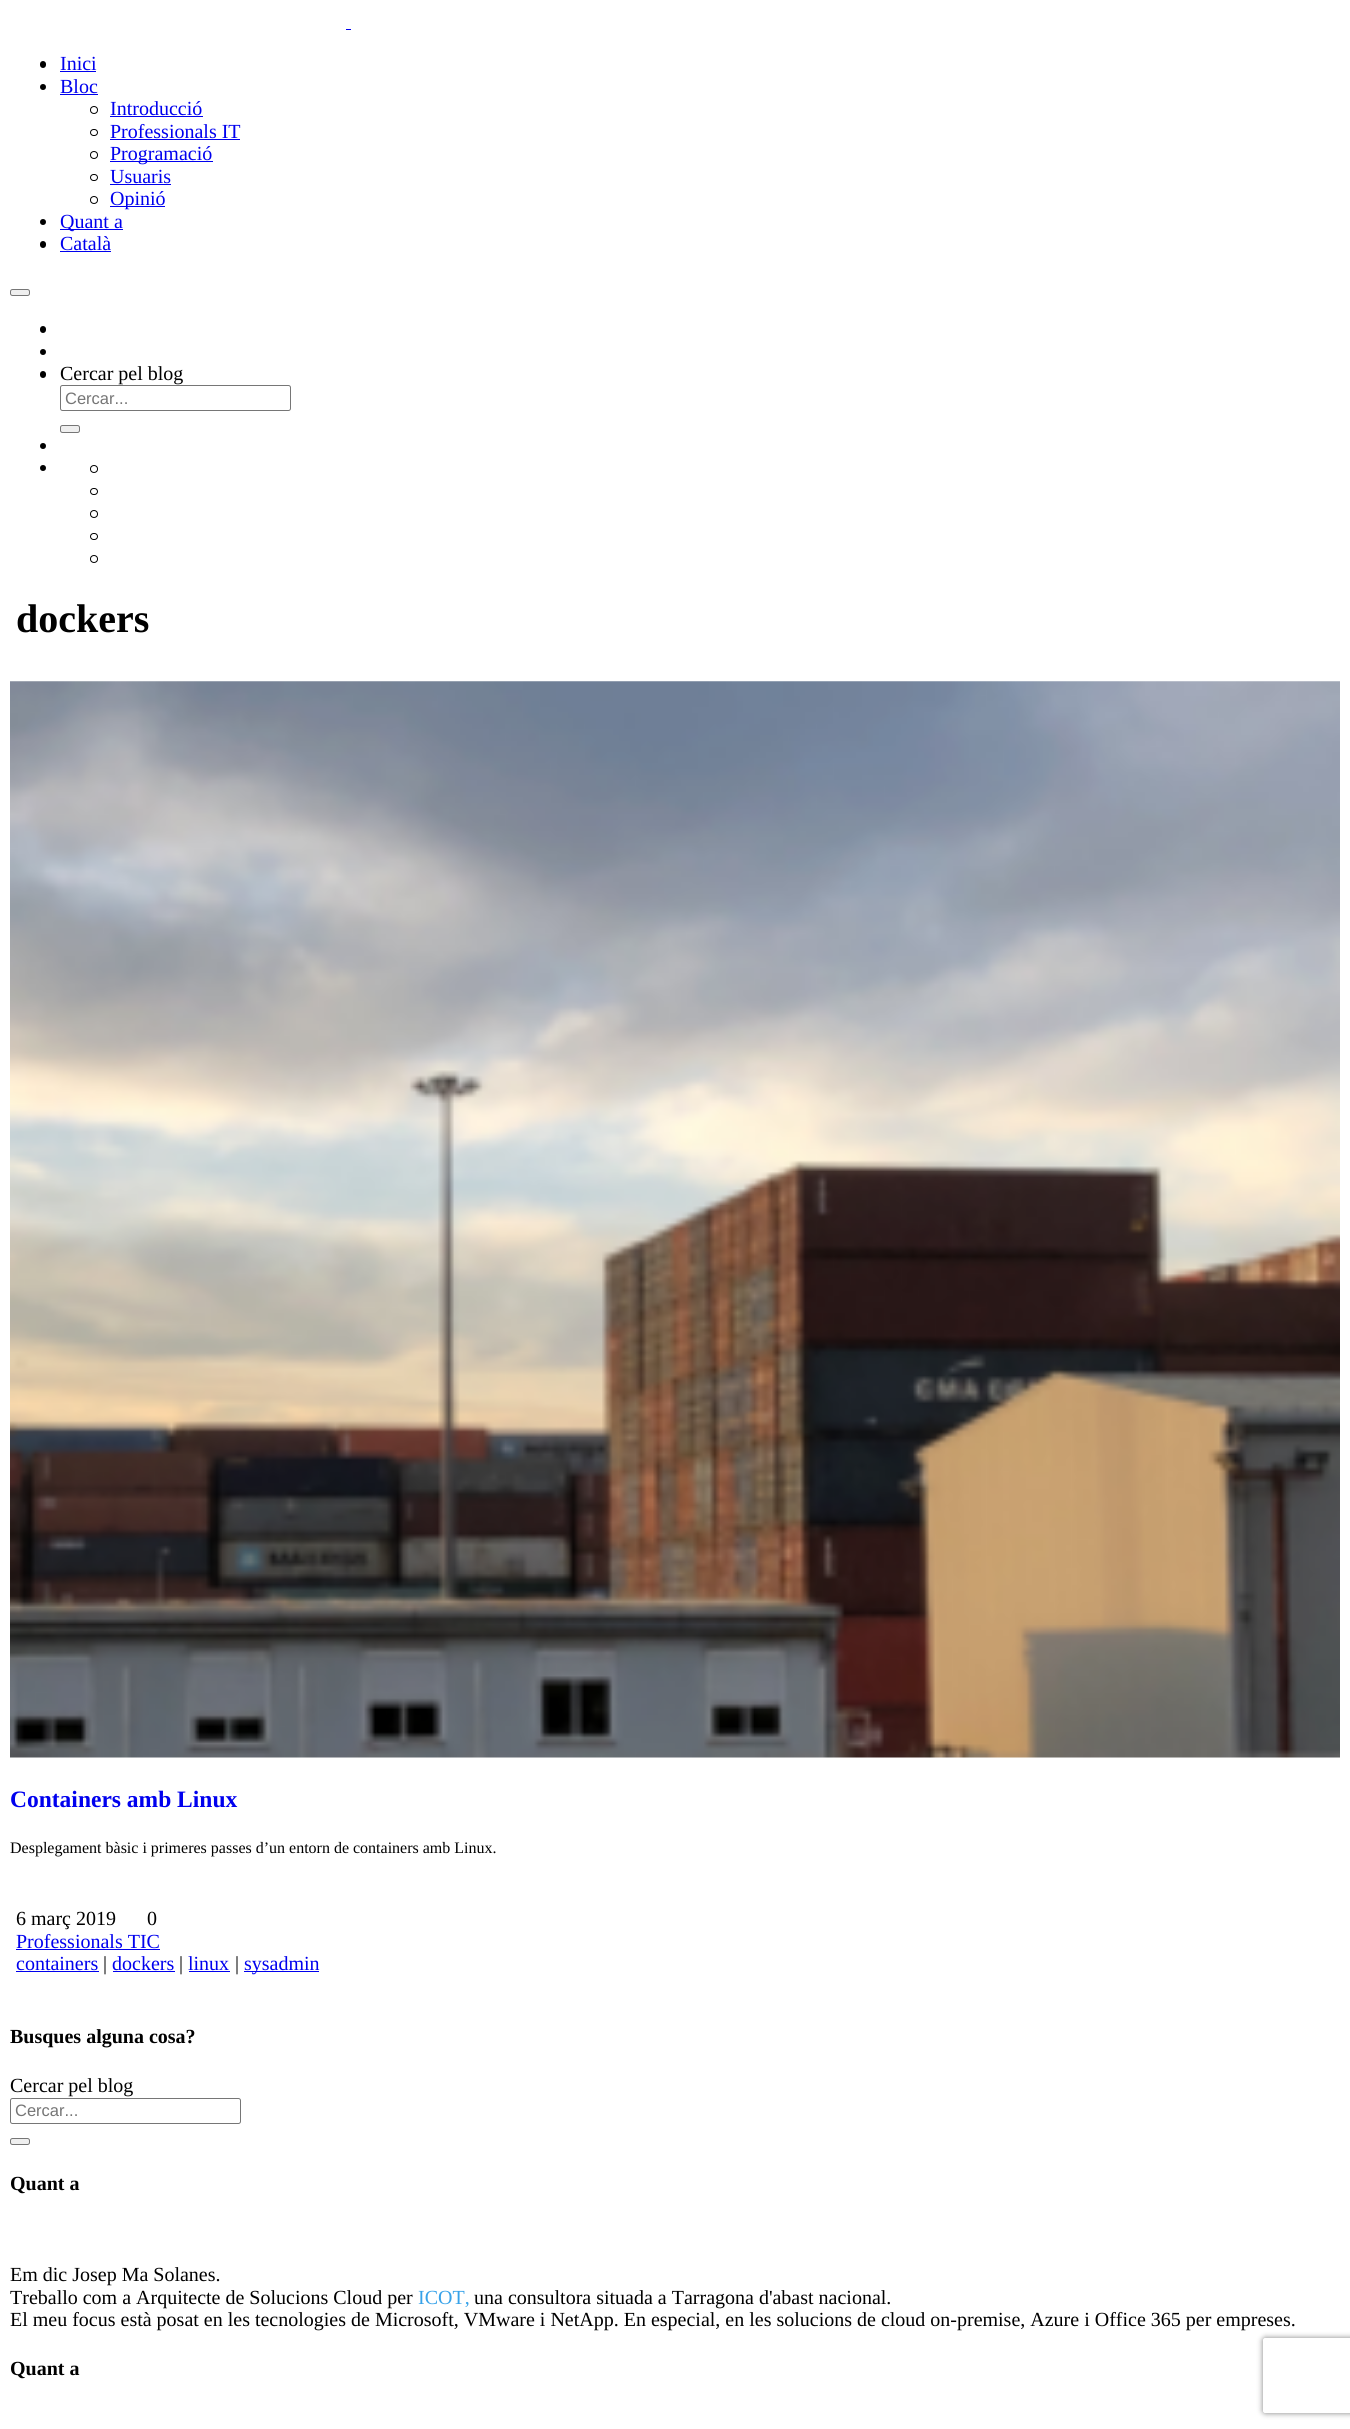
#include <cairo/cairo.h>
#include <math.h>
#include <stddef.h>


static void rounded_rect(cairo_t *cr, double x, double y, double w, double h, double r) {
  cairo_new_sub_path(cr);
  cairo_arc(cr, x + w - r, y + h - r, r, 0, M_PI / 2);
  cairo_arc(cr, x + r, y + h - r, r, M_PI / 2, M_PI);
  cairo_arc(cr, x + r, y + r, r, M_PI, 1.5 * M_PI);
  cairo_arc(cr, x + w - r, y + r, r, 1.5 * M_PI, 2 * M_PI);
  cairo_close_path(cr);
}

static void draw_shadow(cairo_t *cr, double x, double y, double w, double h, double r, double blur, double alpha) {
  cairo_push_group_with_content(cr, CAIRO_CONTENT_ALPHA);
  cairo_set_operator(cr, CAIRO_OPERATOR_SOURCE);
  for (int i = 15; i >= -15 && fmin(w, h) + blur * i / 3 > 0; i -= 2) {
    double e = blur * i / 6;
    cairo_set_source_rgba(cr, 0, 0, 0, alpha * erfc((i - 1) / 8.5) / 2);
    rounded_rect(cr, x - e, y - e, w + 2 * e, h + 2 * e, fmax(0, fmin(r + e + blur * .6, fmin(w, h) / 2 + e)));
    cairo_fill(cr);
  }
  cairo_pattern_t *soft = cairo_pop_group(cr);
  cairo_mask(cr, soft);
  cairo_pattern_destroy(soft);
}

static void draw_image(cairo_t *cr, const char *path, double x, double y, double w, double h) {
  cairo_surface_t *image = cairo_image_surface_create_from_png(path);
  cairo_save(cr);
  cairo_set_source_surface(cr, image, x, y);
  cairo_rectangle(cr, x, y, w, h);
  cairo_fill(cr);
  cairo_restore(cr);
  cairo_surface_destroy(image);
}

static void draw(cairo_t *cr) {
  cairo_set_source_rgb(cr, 1, 1, 1);
  cairo_paint(cr);
  cairo_set_source_rgb(cr, 0, 0, 238 / 255.0);
  cairo_rectangle(cr, 346, 29, 5, 1);
  cairo_fill(cr);
  cairo_set_source_rgb(cr, 0, 0, 0);
  rounded_rect(cr, 40, 61, 6, 7, 3);
  cairo_fill(cr);
  cairo_set_source_rgb(cr, 0, 0, 238 / 255.0);
  cairo_rectangle(cr, 60, 71, 36, 1);
  cairo_fill(cr);
  cairo_set_source_rgb(cr, 0, 0, 0);
  cairo_arc(cr, 43, 87, 3, 0, 2 * M_PI);
  cairo_fill(cr);
  cairo_set_source_rgb(cr, 0, 0, 238 / 255.0);
  cairo_rectangle(cr, 60, 94, 38, 1);
  cairo_fill(cr);
  cairo_arc(cr, 94, 110, 3.5, 0, 2 * M_PI);
  cairo_set_source_rgb(cr, 0, 0, 0);
  cairo_set_line_width(cr, 1);
  cairo_stroke(cr);
  cairo_set_source_rgb(cr, 0, 0, 238 / 255.0);
  cairo_rectangle(cr, 110, 116, 93, 1);
  cairo_fill(cr);
  rounded_rect(cr, 90.5, 129.5, 7, 6, 3);
  cairo_set_source_rgb(cr, 0, 0, 0);
  cairo_stroke(cr);
  cairo_set_source_rgb(cr, 0, 0, 238 / 255.0);
  cairo_rectangle(cr, 110, 139, 130, 1);
  cairo_fill(cr);
  cairo_arc(cr, 94, 155, 3.5, 0, 2 * M_PI);
  cairo_set_source_rgb(cr, 0, 0, 0);
  cairo_stroke(cr);
  cairo_set_source_rgb(cr, 0, 0, 238 / 255.0);
  cairo_rectangle(cr, 110, 161, 103, 1);
  cairo_fill(cr);
  rounded_rect(cr, 90.5, 174.5, 7, 6, 3);
  cairo_set_source_rgb(cr, 0, 0, 0);
  cairo_stroke(cr);
  cairo_set_source_rgb(cr, 0, 0, 238 / 255.0);
  cairo_rectangle(cr, 110, 184, 61, 1);
  cairo_fill(cr);
  cairo_arc(cr, 94, 200, 3.5, 0, 2 * M_PI);
  cairo_set_source_rgb(cr, 0, 0, 0);
  cairo_stroke(cr);
  cairo_set_source_rgb(cr, 0, 0, 238 / 255.0);
  cairo_rectangle(cr, 110, 206, 55, 1);
  cairo_fill(cr);
  cairo_set_source_rgb(cr, 0, 0, 0);
  cairo_arc(cr, 43, 222, 3, 0, 2 * M_PI);
  cairo_fill(cr);
  cairo_set_source_rgb(cr, 0, 0, 238 / 255.0);
  cairo_rectangle(cr, 60, 229, 63, 1);
  cairo_fill(cr);
  cairo_set_source_rgb(cr, 0, 0, 0);
  rounded_rect(cr, 40, 241, 6, 7, 3);
  cairo_fill(cr);
  cairo_set_source_rgb(cr, 0, 0, 238 / 255.0);
  cairo_rectangle(cr, 60, 251, 51, 1);
  cairo_fill(cr);
  cairo_set_source_rgb(cr, 239 / 255.0, 239 / 255.0, 239 / 255.0);
  rounded_rect(cr, 10.5, 289.5, 19, 6, 2);
  cairo_fill_preserve(cr);
  cairo_set_source_rgb(cr, 118 / 255.0, 118 / 255.0, 118 / 255.0);
  cairo_stroke(cr);
  cairo_set_source_rgb(cr, 0, 0, 0);
  rounded_rect(cr, 40, 326, 6, 7, 3);
  cairo_fill(cr);
  cairo_arc(cr, 43, 352, 3, 0, 2 * M_PI);
  cairo_fill(cr);
  rounded_rect(cr, 40, 371, 6, 7, 3);
  cairo_fill(cr);
  rounded_rect(cr, 60.5, 385.5, 230, 25, 2);
  cairo_set_source_rgb(cr, 118 / 255.0, 118 / 255.0, 118 / 255.0);
  cairo_stroke(cr);
  cairo_set_source_rgb(cr, 239 / 255.0, 239 / 255.0, 239 / 255.0);
  rounded_rect(cr, 60.5, 425.5, 19, 7, 2);
  cairo_fill_preserve(cr);
  cairo_set_source_rgb(cr, 118 / 255.0, 118 / 255.0, 118 / 255.0);
  cairo_stroke(cr);
  cairo_set_source_rgb(cr, 0, 0, 0);
  cairo_arc(cr, 43, 446, 3, 0, 2 * M_PI);
  cairo_fill(cr);
  cairo_arc(cr, 43, 468, 3, 0, 2 * M_PI);
  cairo_fill(cr);
  cairo_arc(cr, 94, 469, 3.5, 0, 2 * M_PI);
  cairo_stroke(cr);
  rounded_rect(cr, 90.5, 488.5, 7, 6, 3);
  cairo_stroke(cr);
  cairo_arc(cr, 94, 514, 3.5, 0, 2 * M_PI);
  cairo_stroke(cr);
  rounded_rect(cr, 90.5, 533.5, 7, 6, 3);
  cairo_stroke(cr);
  cairo_arc(cr, 94, 559, 3.5, 0, 2 * M_PI);
  cairo_stroke(cr);
  draw_image(cr, "images/1.png", 10, 681, 1330, 1077);
  cairo_set_source_rgb(cr, 0, 0, 238 / 255.0);
  cairo_rectangle(cr, 16, 1949, 144, 1);
  cairo_fill(cr);
  cairo_rectangle(cr, 16, 1971, 83, 1);
  cairo_fill(cr);
  cairo_rectangle(cr, 113, 1971, 62, 1);
  cairo_fill(cr);
  cairo_rectangle(cr, 189, 1971, 41, 1);
  cairo_fill(cr);
  cairo_rectangle(cr, 244, 1971, 75, 1);
  cairo_fill(cr);
  rounded_rect(cr, 10.5, 2098.5, 230, 25, 2);
  cairo_set_source_rgb(cr, 118 / 255.0, 118 / 255.0, 118 / 255.0);
  cairo_stroke(cr);
  cairo_set_source_rgb(cr, 239 / 255.0, 239 / 255.0, 239 / 255.0);
  rounded_rect(cr, 10.5, 2138.5, 19, 6, 2);
  cairo_fill_preserve(cr);
  cairo_set_source_rgb(cr, 118 / 255.0, 118 / 255.0, 118 / 255.0);
  cairo_stroke(cr);
  cairo_save(cr);
  cairo_set_fill_rule(cr, CAIRO_FILL_RULE_EVEN_ODD);
  cairo_new_path(cr);
  cairo_move_to(cr, 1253, 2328);
  cairo_line_to(cr, 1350, 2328);
  cairo_line_to(cr, 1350, 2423);
  cairo_line_to(cr, 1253, 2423);
  cairo_close_path(cr);
  cairo_move_to(cr, 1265.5, 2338);
  cairo_line_to(cr, 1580.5, 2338);
  cairo_curve_to(cr, 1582, 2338, 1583, 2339, 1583, 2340.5);
  cairo_line_to(cr, 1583, 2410.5);
  cairo_curve_to(cr, 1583, 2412, 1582, 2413, 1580.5, 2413);
  cairo_line_to(cr, 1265.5, 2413);
  cairo_curve_to(cr, 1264, 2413, 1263, 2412, 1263, 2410.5);
  cairo_line_to(cr, 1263, 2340.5);
  cairo_curve_to(cr, 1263, 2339, 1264, 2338, 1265.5, 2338);
  cairo_close_path(cr);
  cairo_clip(cr);
  cairo_set_source_rgb(cr, 128 / 255.0, 128 / 255.0, 128 / 255.0);
  draw_shadow(cr, 1263, 2338, 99, 75, 2.5, 3, 1);
  cairo_restore(cr);
  cairo_select_font_face(cr, "Liberation Serif", CAIRO_FONT_SLANT_NORMAL, CAIRO_FONT_WEIGHT_NORMAL);
  cairo_set_font_size(cr, 20);
  cairo_set_source_rgb(cr, 0, 0, 238 / 255.0);
  cairo_move_to(cr, 60, 70);
  cairo_show_text(cr, "Inici");
  cairo_move_to(cr, 60, 93);
  cairo_show_text(cr, "Bloc");
  cairo_move_to(cr, 110, 115);
  cairo_show_text(cr, "Introducció");
  cairo_move_to(cr, 110, 138);
  cairo_show_text(cr, "Professionals IT");
  cairo_move_to(cr, 110, 160);
  cairo_show_text(cr, "Programació");
  cairo_move_to(cr, 110, 183);
  cairo_show_text(cr, "Usuaris");
  cairo_move_to(cr, 110, 205);
  cairo_show_text(cr, "Opinió");
  cairo_move_to(cr, 60, 228);
  cairo_show_text(cr, "Quant a");
  cairo_move_to(cr, 60, 250);
  cairo_show_text(cr, "Català");
  cairo_set_source_rgb(cr, 0, 0, 0);
  cairo_move_to(cr, 60, 380);
  cairo_show_text(cr, "Cercar pel blog");
  cairo_select_font_face(cr, "Liberation Sans", CAIRO_FONT_SLANT_NORMAL, CAIRO_FONT_WEIGHT_NORMAL);
  cairo_set_font_size(cr, 16.5);
  cairo_set_source_rgb(cr, 117 / 255.0, 117 / 255.0, 117 / 255.0);
  cairo_move_to(cr, 65, 404);
  cairo_show_text(cr, "Cercar...");
  cairo_select_font_face(cr, "Liberation Serif", CAIRO_FONT_SLANT_NORMAL, CAIRO_FONT_WEIGHT_BOLD);
  cairo_set_font_size(cr, 40);
  cairo_set_source_rgb(cr, 0, 0, 0);
  cairo_move_to(cr, 16, 632);
  cairo_show_text(cr, "dockers");
  cairo_set_font_size(cr, 23.5);
  cairo_set_source_rgb(cr, 0, 0, 238 / 255.0);
  cairo_move_to(cr, 10, 1807);
  cairo_show_text(cr, "Containers amb Linux");
  cairo_select_font_face(cr, "Liberation Serif", CAIRO_FONT_SLANT_NORMAL, CAIRO_FONT_WEIGHT_NORMAL);
  cairo_set_font_size(cr, 16);
  cairo_set_source_rgb(cr, 0, 0, 0);
  cairo_move_to(cr, 10, 1853);
  cairo_show_text(cr, "Desplegament bàsic i primeres passes d’un entorn de containers amb Linux.");
  cairo_set_font_size(cr, 20);
  cairo_move_to(cr, 16, 1925);
  cairo_show_text(cr, "6 març 2019");
  cairo_move_to(cr, 147, 1925);
  cairo_show_text(cr, "0");
  cairo_set_source_rgb(cr, 0, 0, 238 / 255.0);
  cairo_move_to(cr, 16, 1948);
  cairo_show_text(cr, "Professionals TIC");
  cairo_move_to(cr, 16, 1970);
  cairo_show_text(cr, "containers");
  cairo_set_source_rgb(cr, 0, 0, 0);
  cairo_move_to(cr, 103, 1970);
  cairo_show_text(cr, "|");
  cairo_set_source_rgb(cr, 0, 0, 238 / 255.0);
  cairo_move_to(cr, 112, 1970);
  cairo_show_text(cr, "dockers");
  cairo_set_source_rgb(cr, 0, 0, 0);
  cairo_move_to(cr, 179, 1970);
  cairo_show_text(cr, "|");
  cairo_set_source_rgb(cr, 0, 0, 238 / 255.0);
  cairo_move_to(cr, 188, 1970);
  cairo_show_text(cr, "linux");
  cairo_set_source_rgb(cr, 0, 0, 0);
  cairo_move_to(cr, 235, 1970);
  cairo_show_text(cr, "|");
  cairo_set_source_rgb(cr, 0, 0, 238 / 255.0);
  cairo_move_to(cr, 244, 1970);
  cairo_show_text(cr, "sysadmin");
  cairo_select_font_face(cr, "Liberation Serif", CAIRO_FONT_SLANT_NORMAL, CAIRO_FONT_WEIGHT_BOLD);
  cairo_set_source_rgb(cr, 0, 0, 0);
  cairo_move_to(cr, 10, 2043);
  cairo_show_text(cr, "Busques alguna cosa?");
  cairo_select_font_face(cr, "Liberation Serif", CAIRO_FONT_SLANT_NORMAL, CAIRO_FONT_WEIGHT_NORMAL);
  cairo_move_to(cr, 10, 2092);
  cairo_show_text(cr, "Cercar pel blog");
  cairo_select_font_face(cr, "Liberation Sans", CAIRO_FONT_SLANT_NORMAL, CAIRO_FONT_WEIGHT_NORMAL);
  cairo_set_font_size(cr, 16.5);
  cairo_set_source_rgb(cr, 117 / 255.0, 117 / 255.0, 117 / 255.0);
  cairo_move_to(cr, 15, 2116);
  cairo_show_text(cr, "Cercar...");
  cairo_select_font_face(cr, "Liberation Serif", CAIRO_FONT_SLANT_NORMAL, CAIRO_FONT_WEIGHT_BOLD);
  cairo_set_font_size(cr, 20);
  cairo_set_source_rgb(cr, 0, 0, 0);
  cairo_move_to(cr, 10, 2190);
  cairo_show_text(cr, "Quant a");
  cairo_select_font_face(cr, "Liberation Serif", CAIRO_FONT_SLANT_NORMAL, CAIRO_FONT_WEIGHT_NORMAL);
  cairo_move_to(cr, 10, 2281);
  cairo_show_text(cr, "Em dic Josep Ma Solanes.");
  cairo_move_to(cr, 10, 2304);
  cairo_show_text(cr, "Treballo com a Arquitecte de Solucions Cloud per");
  cairo_set_source_rgb(cr, 55 / 255.0, 162 / 255.0, 233 / 255.0);
  cairo_move_to(cr, 418, 2304);
  cairo_show_text(cr, "ICOT,");
  cairo_set_source_rgb(cr, 0, 0, 0);
  cairo_move_to(cr, 474, 2304);
  cairo_show_text(cr, "una consultora situada a Tarragona d'abast nacional.");
  cairo_move_to(cr, 10, 2326);
  cairo_show_text(cr, "El meu focus està posat en les tecnologies de Microsoft, VMware i NetApp. En especial, en les solucions de cloud on-premise, Azure i Office 365 per empreses.");
  cairo_select_font_face(cr, "Liberation Serif", CAIRO_FONT_SLANT_NORMAL, CAIRO_FONT_WEIGHT_BOLD);
  cairo_move_to(cr, 10, 2375);
  cairo_show_text(cr, "Quant a");
}

int main(void) {
  cairo_surface_t *surface = cairo_image_surface_create(CAIRO_FORMAT_RGB24, 1350, 2429);
  cairo_t *cr = cairo_create(surface);
  cairo_font_options_t *options = cairo_font_options_create();
  cairo_font_options_set_hint_metrics(options, CAIRO_HINT_METRICS_OFF);
  cairo_font_options_set_hint_style(options, CAIRO_HINT_STYLE_NONE);
  cairo_set_font_options(cr, options);
  cairo_set_miter_limit(cr, 4);
  draw(cr);
  cairo_surface_write_to_png(surface, "out.png");
  cairo_font_options_destroy(options);
  cairo_destroy(cr);
  cairo_surface_destroy(surface);
  return 0;
}
